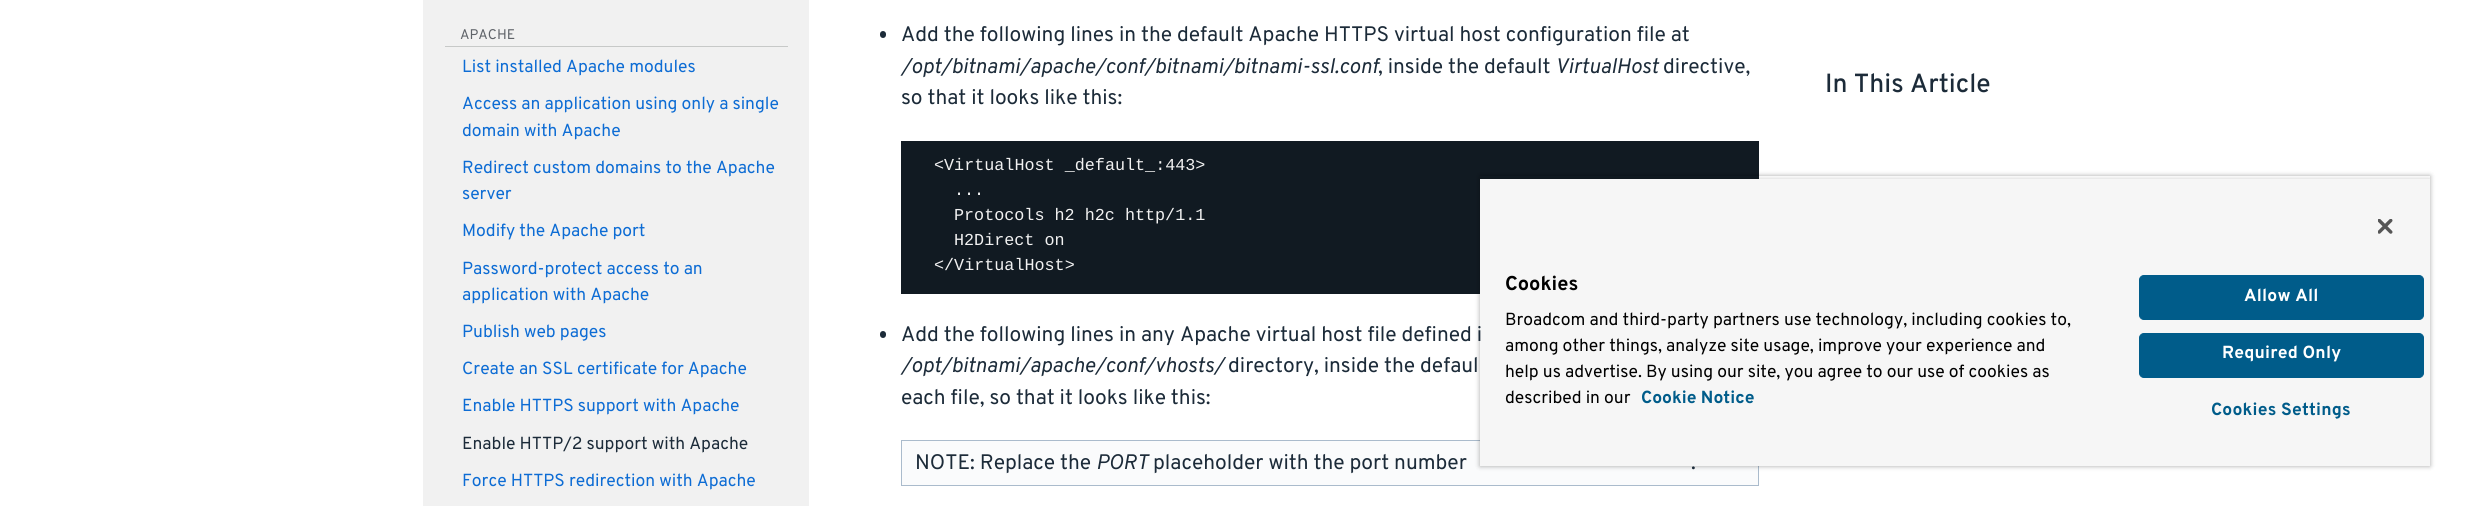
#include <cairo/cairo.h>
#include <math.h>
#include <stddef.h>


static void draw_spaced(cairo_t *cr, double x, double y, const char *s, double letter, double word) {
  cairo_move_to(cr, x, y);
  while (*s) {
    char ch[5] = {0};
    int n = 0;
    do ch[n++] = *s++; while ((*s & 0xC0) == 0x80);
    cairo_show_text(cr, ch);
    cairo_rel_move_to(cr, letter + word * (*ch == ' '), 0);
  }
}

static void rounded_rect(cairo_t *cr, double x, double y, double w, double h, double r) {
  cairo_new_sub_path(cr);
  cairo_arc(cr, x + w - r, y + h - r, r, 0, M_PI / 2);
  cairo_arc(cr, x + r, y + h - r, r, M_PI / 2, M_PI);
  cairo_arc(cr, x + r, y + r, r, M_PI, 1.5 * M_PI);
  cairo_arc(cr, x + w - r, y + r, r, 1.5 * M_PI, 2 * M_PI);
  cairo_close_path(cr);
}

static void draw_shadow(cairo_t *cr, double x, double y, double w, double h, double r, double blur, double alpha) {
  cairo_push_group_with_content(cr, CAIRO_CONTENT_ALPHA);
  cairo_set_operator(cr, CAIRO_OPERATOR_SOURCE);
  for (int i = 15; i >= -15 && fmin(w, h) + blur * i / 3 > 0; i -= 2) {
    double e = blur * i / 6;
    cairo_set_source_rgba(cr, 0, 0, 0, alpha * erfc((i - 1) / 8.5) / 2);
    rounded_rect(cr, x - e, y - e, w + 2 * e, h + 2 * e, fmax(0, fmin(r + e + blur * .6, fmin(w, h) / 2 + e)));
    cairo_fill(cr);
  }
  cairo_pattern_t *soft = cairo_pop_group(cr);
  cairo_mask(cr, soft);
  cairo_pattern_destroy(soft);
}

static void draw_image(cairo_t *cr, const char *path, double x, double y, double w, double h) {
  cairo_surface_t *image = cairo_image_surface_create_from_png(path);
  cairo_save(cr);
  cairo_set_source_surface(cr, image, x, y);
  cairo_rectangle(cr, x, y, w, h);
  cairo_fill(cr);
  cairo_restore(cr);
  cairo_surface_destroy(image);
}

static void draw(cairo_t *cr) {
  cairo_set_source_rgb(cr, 1, 1, 1);
  cairo_paint(cr);
  cairo_set_source_rgb(cr, 241 / 255.0, 241 / 255.0, 241 / 255.0);
  cairo_rectangle(cr, 423, 0, 386, 506);
  cairo_fill(cr);
  cairo_set_source_rgb(cr, 199 / 255.0, 201 / 255.0, 200 / 255.0);
  cairo_rectangle(cr, 445, 46, 343, 1);
  cairo_fill(cr);
  cairo_set_source_rgb(cr, 28 / 255.0, 43 / 255.0, 57 / 255.0);
  rounded_rect(cr, 880, 31, 6, 7, 3);
  cairo_fill(cr);
  cairo_set_source_rgb(cr, 17 / 255.0, 26 / 255.0, 34 / 255.0);
  cairo_rectangle(cr, 901, 141, 858, 153);
  cairo_fill(cr);
  cairo_set_source_rgb(cr, 28 / 255.0, 43 / 255.0, 57 / 255.0);
  rounded_rect(cr, 880, 331, 6, 7, 3);
  cairo_fill(cr);
  cairo_set_source_rgb(cr, 250 / 255.0, 251 / 255.0, 252 / 255.0);
  cairo_rectangle(cr, 901.5, 440.5, 857, 45);
  cairo_fill_preserve(cr);
  cairo_set_source_rgb(cr, 170 / 255.0, 187 / 255.0, 204 / 255.0);
  cairo_set_line_width(cr, 1);
  cairo_stroke(cr);
  cairo_save(cr);
  cairo_set_fill_rule(cr, CAIRO_FILL_RULE_EVEN_ODD);
  cairo_new_path(cr);
  cairo_move_to(cr, 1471, 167);
  cairo_line_to(cr, 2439, 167);
  cairo_line_to(cr, 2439, 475);
  cairo_line_to(cr, 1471, 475);
  cairo_close_path(cr);
  cairo_move_to(cr, 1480, 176);
  cairo_line_to(cr, 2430, 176);
  cairo_line_to(cr, 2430, 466);
  cairo_line_to(cr, 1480, 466);
  cairo_close_path(cr);
  cairo_clip(cr);
  cairo_set_source_rgb(cr, 0, 0, 0);
  draw_shadow(cr, 1480, 176, 950, 290, 0, 2.5, 0.35);
  cairo_restore(cr);
  cairo_save(cr);
  cairo_rectangle(cr, 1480, 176, 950, 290);
  cairo_clip(cr);
  cairo_set_source_rgb(cr, 0, 0, 0);
  draw_shadow(cr, 1480, 179, 950, 287, 0, 2.5, 0.2);
  cairo_restore(cr);
  cairo_set_source_rgb(cr, 246 / 255.0, 246 / 255.0, 246 / 255.0);
  cairo_rectangle(cr, 1480, 179, 950, 287);
  cairo_fill(cr);
  draw_image(cr, "images/1.png", 2378, 219, 15, 15);
  cairo_set_source_rgb(cr, 0, 92 / 255.0, 138 / 255.0);
  rounded_rect(cr, 2139.5, 275.5, 284, 44, 4.5);
  cairo_fill_preserve(cr);
  cairo_stroke(cr);
  rounded_rect(cr, 2139.5, 333.5, 284, 44, 4.5);
  cairo_fill_preserve(cr);
  cairo_stroke(cr);
  cairo_select_font_face(cr, "Overpass", CAIRO_FONT_SLANT_NORMAL, CAIRO_FONT_WEIGHT_NORMAL);
  cairo_set_font_size(cr, 14);
  cairo_set_source_rgb(cr, 95 / 255.0, 99 / 255.0, 105 / 255.0);
  cairo_move_to(cr, 460, 39);
  cairo_show_text(cr, "APACHE");
  cairo_set_font_size(cr, 17.5);
  cairo_set_source_rgb(cr, 13 / 255.0, 108 / 255.0, 212 / 255.0);
  cairo_move_to(cr, 462, 72);
  cairo_show_text(cr, "List installed Apache modules");
  cairo_move_to(cr, 462, 109);
  cairo_show_text(cr, "Access an application using only a single");
  cairo_move_to(cr, 462, 136);
  cairo_show_text(cr, "domain with Apache");
  cairo_move_to(cr, 462, 173);
  cairo_show_text(cr, "Redirect custom domains to the Apache");
  cairo_move_to(cr, 462, 199);
  cairo_show_text(cr, "server");
  cairo_move_to(cr, 462, 236);
  cairo_show_text(cr, "Modify the Apache port");
  cairo_move_to(cr, 462, 274);
  cairo_show_text(cr, "Password-protect access to an");
  cairo_move_to(cr, 462, 300);
  cairo_show_text(cr, "application with Apache");
  cairo_move_to(cr, 462, 337);
  cairo_show_text(cr, "Publish web pages");
  cairo_move_to(cr, 462, 374);
  cairo_show_text(cr, "Create an SSL certificate for Apache");
  cairo_move_to(cr, 462, 411);
  cairo_show_text(cr, "Enable HTTPS support with Apache");
  cairo_set_source_rgb(cr, 28 / 255.0, 43 / 255.0, 57 / 255.0);
  cairo_move_to(cr, 462, 449);
  cairo_show_text(cr, "Enable HTTP/2 support with Apache");
  cairo_set_source_rgb(cr, 13 / 255.0, 108 / 255.0, 212 / 255.0);
  cairo_move_to(cr, 462, 486);
  cairo_show_text(cr, "Force HTTPS redirection with Apache");
  cairo_set_font_size(cr, 21);
  cairo_set_source_rgb(cr, 28 / 255.0, 43 / 255.0, 57 / 255.0);
  cairo_move_to(cr, 901, 41);
  cairo_show_text(cr, "Add the following lines in the default Apache HTTPS virtual host configuration file at");
  cairo_select_font_face(cr, "Overpass", CAIRO_FONT_SLANT_ITALIC, CAIRO_FONT_WEIGHT_NORMAL);
  cairo_move_to(cr, 901, 73);
  cairo_show_text(cr, "/opt/bitnami/apache/conf/bitnami/bitnami-ssl.conf");
  cairo_select_font_face(cr, "Overpass", CAIRO_FONT_SLANT_NORMAL, CAIRO_FONT_WEIGHT_NORMAL);
  cairo_move_to(cr, 1378, 73);
  cairo_show_text(cr, ", inside the default");
  cairo_select_font_face(cr, "Overpass", CAIRO_FONT_SLANT_ITALIC, CAIRO_FONT_WEIGHT_NORMAL);
  cairo_move_to(cr, 1555, 73);
  cairo_show_text(cr, "VirtualHost");
  cairo_select_font_face(cr, "Overpass", CAIRO_FONT_SLANT_NORMAL, CAIRO_FONT_WEIGHT_NORMAL);
  cairo_move_to(cr, 1663, 73);
  cairo_show_text(cr, "directive,");
  cairo_move_to(cr, 901, 104);
  cairo_show_text(cr, "so that it looks like this:");
  cairo_select_font_face(cr, "Liberation Mono", CAIRO_FONT_SLANT_NORMAL, CAIRO_FONT_WEIGHT_NORMAL);
  cairo_set_font_size(cr, 16.75);
  cairo_set_source_rgb(cr, 241 / 255.0, 241 / 255.0, 241 / 255.0);
  cairo_move_to(cr, 934, 170);
  cairo_show_text(cr, "<VirtualHost _default_:443>");
  cairo_move_to(cr, 954, 195);
  cairo_show_text(cr, "...");
  cairo_move_to(cr, 954, 220);
  cairo_show_text(cr, "Protocols h2 h2c http/1.1");
  cairo_move_to(cr, 954, 245);
  cairo_show_text(cr, "H2Direct on");
  cairo_move_to(cr, 934, 270);
  cairo_show_text(cr, "</VirtualHost>");
  cairo_select_font_face(cr, "Overpass", CAIRO_FONT_SLANT_NORMAL, CAIRO_FONT_WEIGHT_NORMAL);
  cairo_set_font_size(cr, 21);
  cairo_set_source_rgb(cr, 28 / 255.0, 43 / 255.0, 57 / 255.0);
  cairo_move_to(cr, 901, 341);
  cairo_show_text(cr, "Add the following lines in any Apache virtual host file defined i");
  cairo_select_font_face(cr, "Overpass", CAIRO_FONT_SLANT_ITALIC, CAIRO_FONT_WEIGHT_NORMAL);
  cairo_move_to(cr, 901, 372);
  cairo_show_text(cr, "/opt/bitnami/apache/conf/vhosts/");
  cairo_select_font_face(cr, "Overpass", CAIRO_FONT_SLANT_NORMAL, CAIRO_FONT_WEIGHT_NORMAL);
  cairo_move_to(cr, 1228, 372);
  cairo_show_text(cr, "directory, inside the defaul");
  cairo_move_to(cr, 901, 404);
  cairo_show_text(cr, "each file, so that it looks like this:");
  cairo_move_to(cr, 915, 469);
  cairo_show_text(cr, "NOTE: Replace the");
  cairo_select_font_face(cr, "Overpass", CAIRO_FONT_SLANT_ITALIC, CAIRO_FONT_WEIGHT_NORMAL);
  cairo_move_to(cr, 1096, 469);
  cairo_show_text(cr, "PORT");
  cairo_select_font_face(cr, "Overpass", CAIRO_FONT_SLANT_NORMAL, CAIRO_FONT_WEIGHT_NORMAL);
  cairo_move_to(cr, 1153, 469);
  cairo_show_text(cr, "placeholder with the port number");
  cairo_move_to(cr, 1691, 469);
  cairo_show_text(cr, ".");
  cairo_select_font_face(cr, "Overpass Medium", CAIRO_FONT_SLANT_NORMAL, CAIRO_FONT_WEIGHT_NORMAL);
  cairo_set_font_size(cr, 26.25);
  cairo_move_to(cr, 1825, 92);
  cairo_show_text(cr, "In This Article");
  cairo_select_font_face(cr, "Overpass", CAIRO_FONT_SLANT_NORMAL, CAIRO_FONT_WEIGHT_BOLD);
  cairo_set_font_size(cr, 20);
  cairo_set_source_rgb(cr, 0, 0, 0);
  cairo_move_to(cr, 1505, 290);
  cairo_show_text(cr, "Cookies");
  cairo_select_font_face(cr, "Overpass", CAIRO_FONT_SLANT_NORMAL, CAIRO_FONT_WEIGHT_NORMAL);
  cairo_set_font_size(cr, 17.5);
  cairo_move_to(cr, 1505, 325);
  cairo_show_text(cr, "Broadcom and third-party partners use technology, including cookies to,");
  cairo_move_to(cr, 1505, 351);
  cairo_show_text(cr, "among other things, analyze site usage, improve your experience and");
  cairo_move_to(cr, 1505, 377);
  cairo_show_text(cr, "help us advertise. By using our site, you agree to our use of cookies as");
  cairo_move_to(cr, 1505, 403);
  cairo_show_text(cr, "described in our");
  cairo_select_font_face(cr, "Overpass", CAIRO_FONT_SLANT_NORMAL, CAIRO_FONT_WEIGHT_BOLD);
  cairo_set_source_rgb(cr, 0, 92 / 255.0, 138 / 255.0);
  cairo_move_to(cr, 1641, 403);
  cairo_show_text(cr, "Cookie Notice");
  cairo_set_source_rgb(cr, 1, 1, 1);
  draw_spaced(cr, 2244, 301, "Allow All", 0.2, 0);
  draw_spaced(cr, 2222, 358, "Required Only", 0.2, 0);
  cairo_set_source_rgb(cr, 0, 92 / 255.0, 138 / 255.0);
  draw_spaced(cr, 2211, 415, "Cookies Settings", 0.2, 0);
}

int main(void) {
  cairo_surface_t *surface = cairo_image_surface_create(CAIRO_FORMAT_RGB24, 2469, 506);
  cairo_t *cr = cairo_create(surface);
  cairo_font_options_t *options = cairo_font_options_create();
  cairo_font_options_set_hint_metrics(options, CAIRO_HINT_METRICS_OFF);
  cairo_font_options_set_hint_style(options, CAIRO_HINT_STYLE_NONE);
  cairo_set_font_options(cr, options);
  cairo_set_miter_limit(cr, 4);
  draw(cr);
  cairo_surface_write_to_png(surface, "out.png");
  cairo_font_options_destroy(options);
  cairo_destroy(cr);
  cairo_surface_destroy(surface);
  return 0;
}
